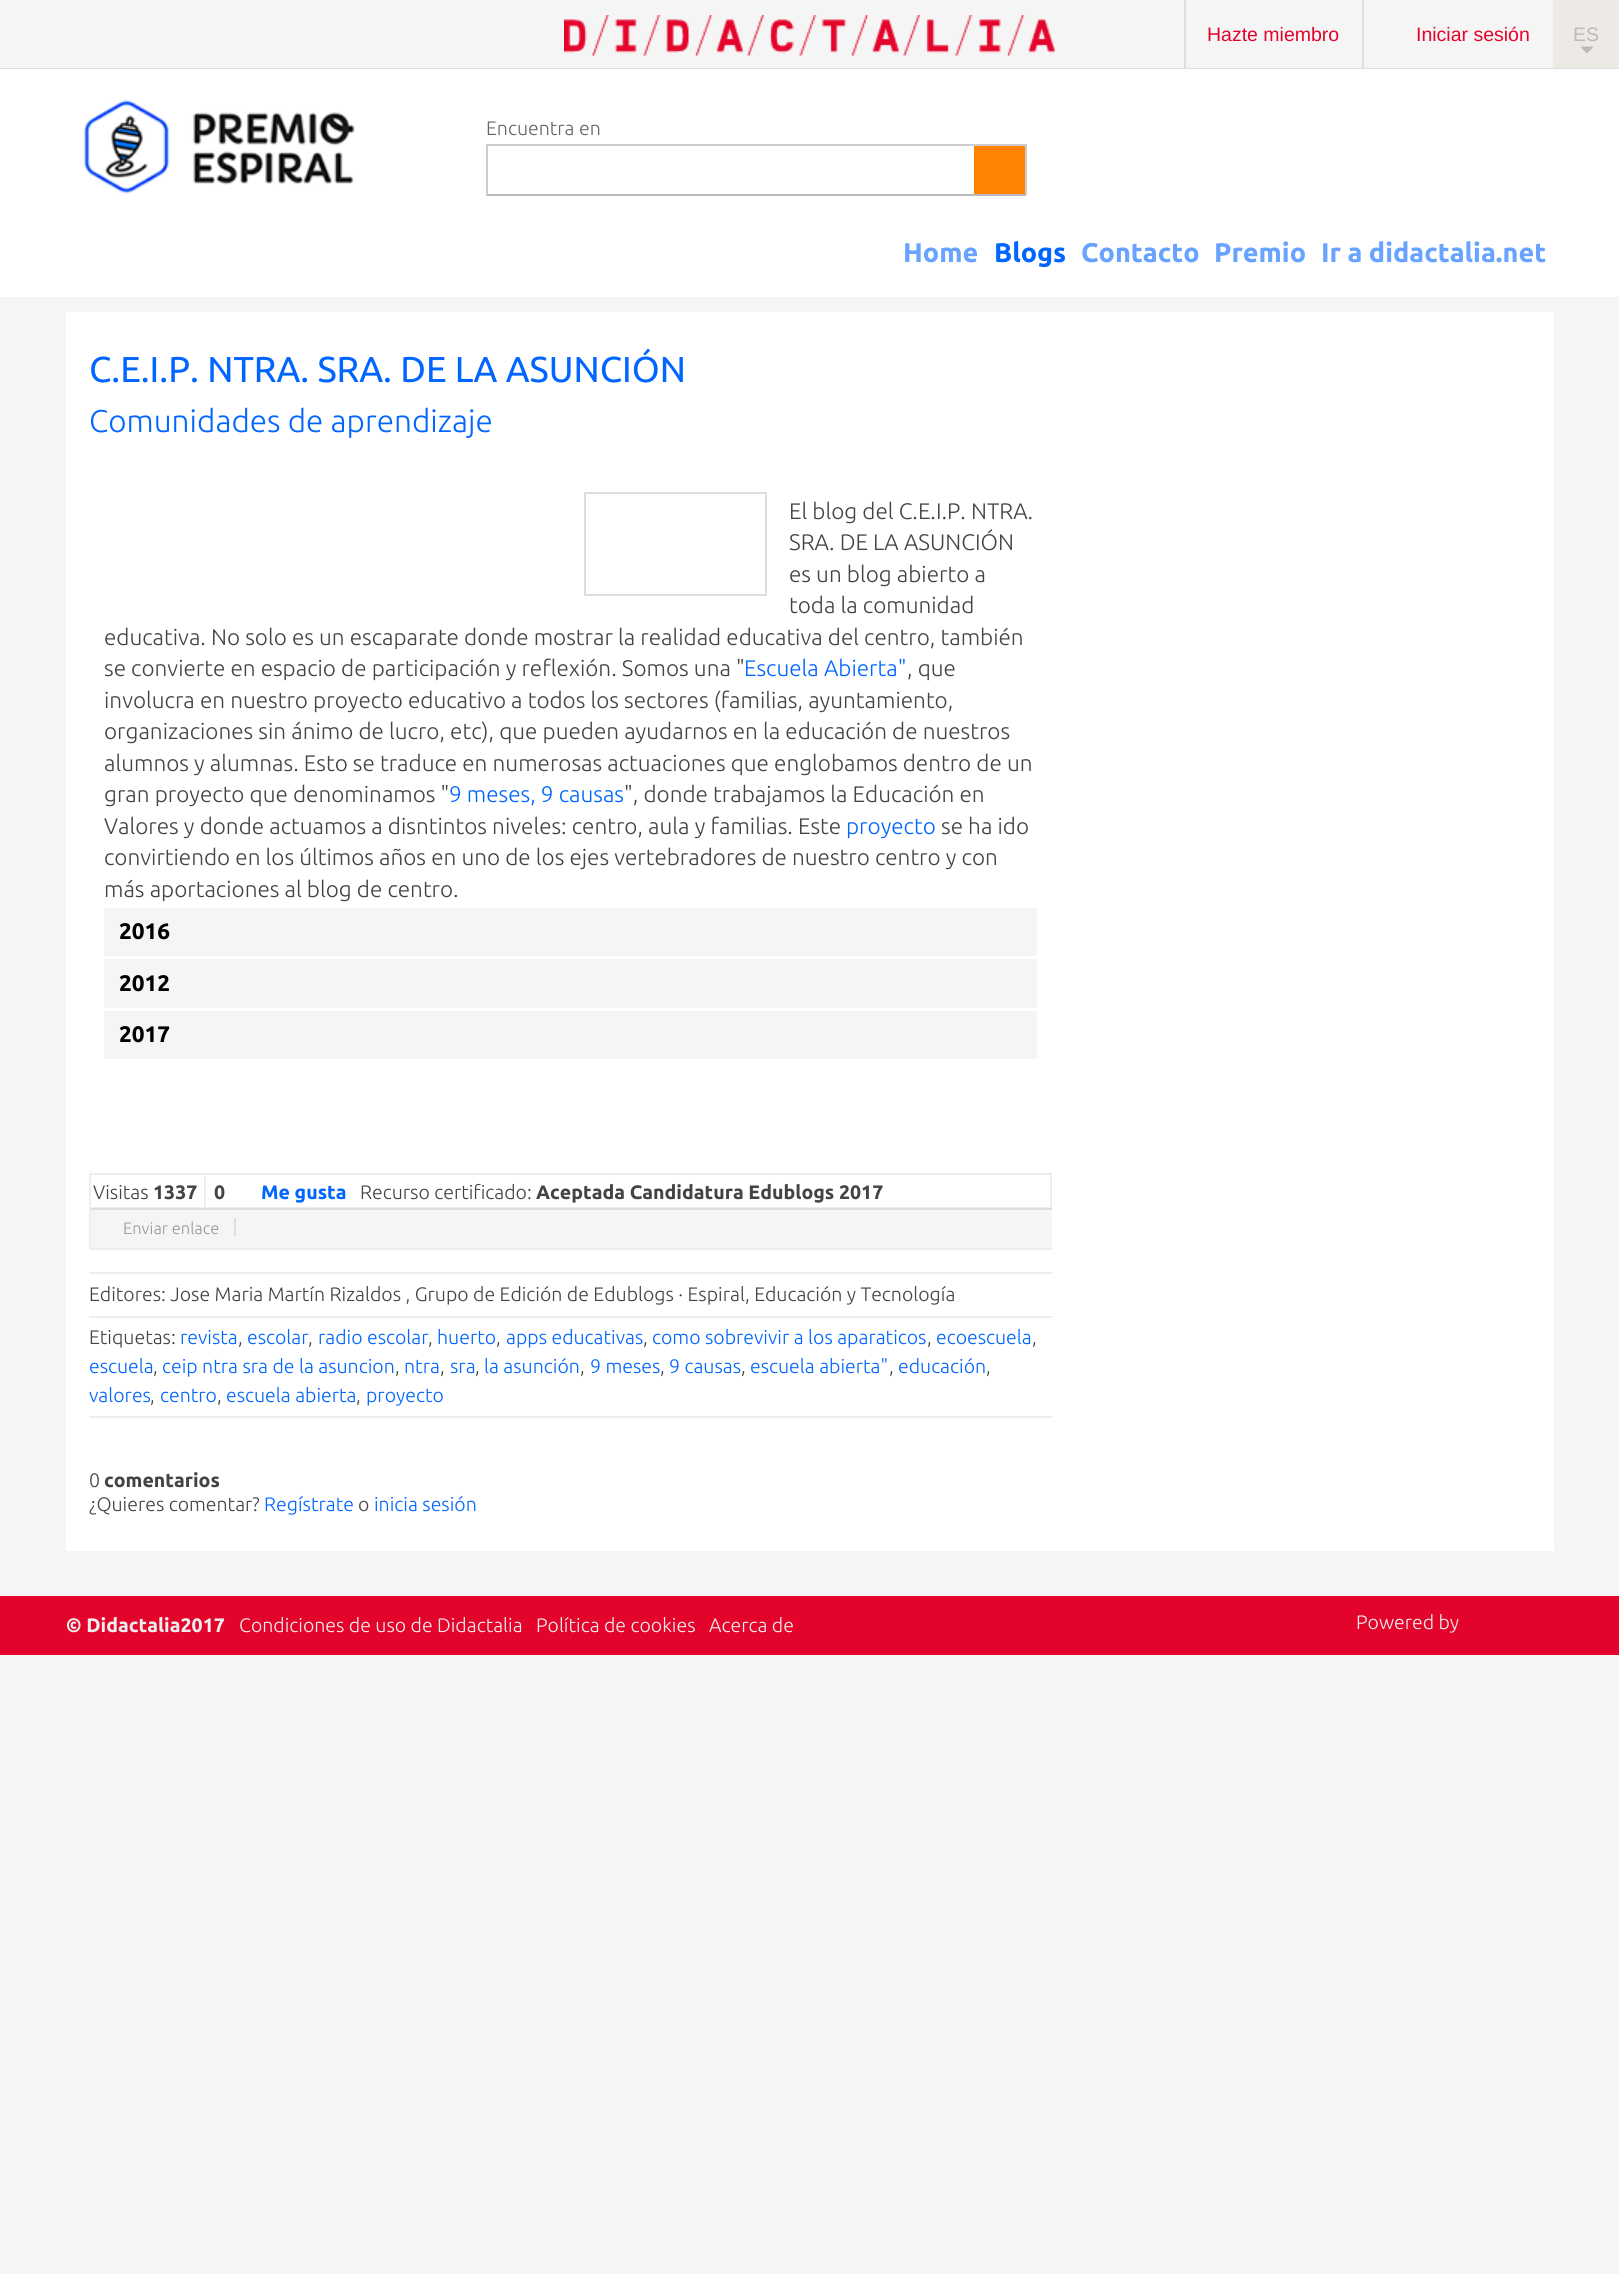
#include <cairo/cairo.h>
#include <math.h>
#include <stddef.h>


static void draw_image(cairo_t *cr, const char *path, double x, double y, double w, double h) {
  cairo_surface_t *image = cairo_image_surface_create_from_png(path);
  cairo_save(cr);
  cairo_set_source_surface(cr, image, x, y);
  cairo_rectangle(cr, x, y, w, h);
  cairo_fill(cr);
  cairo_restore(cr);
  cairo_surface_destroy(image);
}

static void draw(cairo_t *cr) {
  cairo_set_source_rgb(cr, 245 / 255.0, 245 / 255.0, 245 / 255.0);
  cairo_paint(cr);
  cairo_set_source_rgb(cr, 221 / 255.0, 221 / 255.0, 221 / 255.0);
  cairo_rectangle(cr, 0, 68, 1619, 1);
  cairo_fill(cr);
  draw_image(cr, "images/1.png", 564, 15, 491, 41);
  cairo_rectangle(cr, 1184, 0, 2, 68);
  cairo_fill(cr);
  cairo_rectangle(cr, 1362, 0, 2, 68);
  cairo_fill(cr);
  cairo_set_source_rgb(cr, 237 / 255.0, 234 / 255.0, 229 / 255.0);
  cairo_rectangle(cr, 1553, 0, 66, 68);
  cairo_fill(cr);
  draw_image(cr, "images/2.png", 1581, 46, 12, 7);
  cairo_set_source_rgb(cr, 1, 1, 1);
  cairo_rectangle(cr, 0, 69, 1619, 228);
  cairo_fill(cr);
  draw_image(cr, "images/3.png", 83, 100, 272, 94);
  cairo_set_source_rgb(cr, 204 / 255.0, 204 / 255.0, 204 / 255.0);
  cairo_rectangle(cr, 486, 144, 540, 2);
  cairo_fill(cr);
  cairo_rectangle(cr, 1025, 144, 2, 51);
  cairo_fill(cr);
  cairo_set_source_rgb(cr, 187 / 255.0, 187 / 255.0, 187 / 255.0);
  cairo_rectangle(cr, 486, 194, 540, 2);
  cairo_fill(cr);
  cairo_set_source_rgb(cr, 204 / 255.0, 204 / 255.0, 204 / 255.0);
  cairo_rectangle(cr, 486, 144, 2, 51);
  cairo_fill(cr);
  cairo_set_source_rgb(cr, 1, 131 / 255.0, 0);
  cairo_rectangle(cr, 974, 146, 51, 48);
  cairo_fill(cr);
  cairo_set_source_rgb(cr, 1, 1, 1);
  cairo_rectangle(cr, 66, 312, 1488, 1239);
  cairo_fill(cr);
  cairo_rectangle(cr, 585, 493, 181, 102);
  cairo_set_source_rgb(cr, 221 / 255.0, 221 / 255.0, 221 / 255.0);
  cairo_stroke(cr);
  cairo_set_source_rgb(cr, 245 / 255.0, 245 / 255.0, 245 / 255.0);
  cairo_rectangle(cr, 104, 908, 933, 48);
  cairo_fill(cr);
  cairo_rectangle(cr, 104, 959, 933, 49);
  cairo_fill(cr);
  cairo_rectangle(cr, 104, 1011, 933, 48);
  cairo_fill(cr);
  cairo_rectangle(cr, 90, 1174, 961, 34);
  cairo_set_source_rgb(cr, 238 / 255.0, 238 / 255.0, 238 / 255.0);
  cairo_stroke(cr);
  cairo_rectangle(cr, 204, 1175, 2, 33);
  cairo_fill(cr);
  cairo_set_source_rgb(cr, 245 / 255.0, 245 / 255.0, 245 / 255.0);
  cairo_rectangle(cr, 91, 1210, 961, 38);
  cairo_fill(cr);
  cairo_set_source_rgb(cr, 221 / 255.0, 221 / 255.0, 221 / 255.0);
  cairo_rectangle(cr, 89, 1208, 963, 2);
  cairo_fill(cr);
  cairo_set_source_rgb(cr, 238 / 255.0, 238 / 255.0, 238 / 255.0);
  cairo_rectangle(cr, 89, 1248, 963, 2);
  cairo_fill(cr);
  cairo_rectangle(cr, 89, 1208, 2, 42);
  cairo_fill(cr);
  cairo_set_source_rgb(cr, 221 / 255.0, 221 / 255.0, 221 / 255.0);
  cairo_rectangle(cr, 234, 1218, 2, 18);
  cairo_fill(cr);
  cairo_set_source_rgb(cr, 238 / 255.0, 238 / 255.0, 238 / 255.0);
  cairo_rectangle(cr, 89, 1272, 963, 2);
  cairo_fill(cr);
  cairo_rectangle(cr, 89, 1316, 963, 2);
  cairo_fill(cr);
  cairo_rectangle(cr, 89, 1416, 963, 2);
  cairo_fill(cr);
  cairo_set_source_rgb(cr, 228 / 255.0, 4 / 255.0, 43 / 255.0);
  cairo_rectangle(cr, 0, 1596, 1619, 59);
  cairo_fill(cr);
  cairo_select_font_face(cr, "Liberation Sans", CAIRO_FONT_SLANT_NORMAL, CAIRO_FONT_WEIGHT_NORMAL);
  cairo_set_font_size(cr, 19.5);
  cairo_move_to(cr, 1207, 41);
  cairo_show_text(cr, "Hazte miembro");
  cairo_move_to(cr, 1416, 41);
  cairo_show_text(cr, "Iniciar sesión");
  cairo_set_source_rgb(cr, 186 / 255.0, 186 / 255.0, 186 / 255.0);
  cairo_move_to(cr, 1573, 41);
  cairo_show_text(cr, "ES");
  cairo_select_font_face(cr, "Ubuntu Light", CAIRO_FONT_SLANT_NORMAL, CAIRO_FONT_WEIGHT_NORMAL);
  cairo_set_source_rgb(cr, 102 / 255.0, 102 / 255.0, 102 / 255.0);
  cairo_move_to(cr, 486, 135);
  cairo_show_text(cr, "Encuentra en");
  cairo_select_font_face(cr, "Ubuntu", CAIRO_FONT_SLANT_NORMAL, CAIRO_FONT_WEIGHT_BOLD);
  cairo_set_font_size(cr, 27);
  cairo_set_source_rgb(cr, 103 / 255.0, 163 / 255.0, 1);
  cairo_move_to(cr, 903, 262);
  cairo_show_text(cr, "Home");
  cairo_set_source_rgb(cr, 1 / 255.0, 102 / 255.0, 1);
  cairo_move_to(cr, 994, 262);
  cairo_show_text(cr, "Blogs");
  cairo_set_source_rgb(cr, 103 / 255.0, 163 / 255.0, 1);
  cairo_move_to(cr, 1081, 262);
  cairo_show_text(cr, "Contacto");
  cairo_move_to(cr, 1214, 262);
  cairo_show_text(cr, "Premio");
  cairo_move_to(cr, 1321, 262);
  cairo_show_text(cr, "Ir a didactalia.net");
  cairo_select_font_face(cr, "Ubuntu", CAIRO_FONT_SLANT_NORMAL, CAIRO_FONT_WEIGHT_NORMAL);
  cairo_set_font_size(cr, 36);
  cairo_set_source_rgb(cr, 1 / 255.0, 102 / 255.0, 1);
  cairo_move_to(cr, 89, 382);
  cairo_show_text(cr, "C.E.I.P. NTRA. SRA. DE LA ASUNCIÓN");
  cairo_select_font_face(cr, "Ubuntu Light", CAIRO_FONT_SLANT_NORMAL, CAIRO_FONT_WEIGHT_NORMAL);
  cairo_set_font_size(cr, 31.5);
  cairo_move_to(cr, 89, 432);
  cairo_show_text(cr, "Comunidades de aprendizaje");
  cairo_set_font_size(cr, 22.5);
  cairo_set_source_rgb(cr, 68 / 255.0, 68 / 255.0, 68 / 255.0);
  cairo_move_to(cr, 789, 519);
  cairo_show_text(cr, "El blog del C.E.I.P. NTRA.");
  cairo_move_to(cr, 789, 550);
  cairo_show_text(cr, "SRA. DE LA ASUNCIÓN");
  cairo_move_to(cr, 789, 582);
  cairo_show_text(cr, "es un blog abierto a");
  cairo_move_to(cr, 789, 613);
  cairo_show_text(cr, "toda la comunidad");
  cairo_move_to(cr, 104, 645);
  cairo_show_text(cr, "educativa. No solo es un escaparate donde mostrar la realidad educativa del centro, también");
  cairo_move_to(cr, 104, 676);
  cairo_show_text(cr, "se convierte en espacio de participación y reflexión. Somos una \"");
  cairo_set_source_rgb(cr, 1 / 255.0, 102 / 255.0, 1);
  cairo_move_to(cr, 744, 676);
  cairo_show_text(cr, "Escuela Abierta\"");
  cairo_set_source_rgb(cr, 68 / 255.0, 68 / 255.0, 68 / 255.0);
  cairo_move_to(cr, 907, 676);
  cairo_show_text(cr, ", que");
  cairo_move_to(cr, 104, 708);
  cairo_show_text(cr, "involucra en nuestro proyecto educativo a todos los sectores (familias, ayuntamiento,");
  cairo_move_to(cr, 104, 739);
  cairo_show_text(cr, "organizaciones sin ánimo de lucro, etc), que pueden ayudarnos en la educación de nuestros");
  cairo_move_to(cr, 104, 771);
  cairo_show_text(cr, "alumnos y alumnas. Esto se traduce en numerosas actuaciones que englobamos dentro de un");
  cairo_move_to(cr, 104, 802);
  cairo_show_text(cr, "gran proyecto que denominamos \"");
  cairo_set_source_rgb(cr, 1 / 255.0, 102 / 255.0, 1);
  cairo_move_to(cr, 449, 802);
  cairo_show_text(cr, "9 meses, 9 causas");
  cairo_set_source_rgb(cr, 68 / 255.0, 68 / 255.0, 68 / 255.0);
  cairo_move_to(cr, 624, 802);
  cairo_show_text(cr, "\", donde trabajamos la Educación en");
  cairo_move_to(cr, 104, 834);
  cairo_show_text(cr, "Valores y donde actuamos a disntintos niveles: centro, aula y familias. Este");
  cairo_set_source_rgb(cr, 1 / 255.0, 102 / 255.0, 1);
  cairo_move_to(cr, 846, 834);
  cairo_show_text(cr, "proyecto");
  cairo_set_source_rgb(cr, 68 / 255.0, 68 / 255.0, 68 / 255.0);
  cairo_move_to(cr, 941, 834);
  cairo_show_text(cr, "se ha ido");
  cairo_move_to(cr, 104, 865);
  cairo_show_text(cr, "convirtiendo en los últimos años en uno de los ejes vertebradores de nuestro centro y con");
  cairo_move_to(cr, 104, 897);
  cairo_show_text(cr, "más aportaciones al blog de centro.");
  cairo_select_font_face(cr, "Ubuntu", CAIRO_FONT_SLANT_NORMAL, CAIRO_FONT_WEIGHT_BOLD);
  cairo_set_source_rgb(cr, 0, 0, 0);
  cairo_move_to(cr, 119, 939);
  cairo_show_text(cr, "2016");
  cairo_move_to(cr, 119, 991);
  cairo_show_text(cr, "2012");
  cairo_move_to(cr, 119, 1042);
  cairo_show_text(cr, "2017");
  cairo_select_font_face(cr, "Ubuntu Light", CAIRO_FONT_SLANT_NORMAL, CAIRO_FONT_WEIGHT_NORMAL);
  cairo_set_font_size(cr, 19.5);
  cairo_set_source_rgb(cr, 68 / 255.0, 68 / 255.0, 68 / 255.0);
  cairo_move_to(cr, 93, 1199);
  cairo_show_text(cr, "Visitas");
  cairo_select_font_face(cr, "Ubuntu", CAIRO_FONT_SLANT_NORMAL, CAIRO_FONT_WEIGHT_BOLD);
  cairo_move_to(cr, 153, 1199);
  cairo_show_text(cr, "1337");
  cairo_move_to(cr, 214, 1199);
  cairo_show_text(cr, "0");
  cairo_set_source_rgb(cr, 1 / 255.0, 102 / 255.0, 1);
  cairo_move_to(cr, 261, 1199);
  cairo_show_text(cr, "Me gusta");
  cairo_select_font_face(cr, "Ubuntu Light", CAIRO_FONT_SLANT_NORMAL, CAIRO_FONT_WEIGHT_NORMAL);
  cairo_set_source_rgb(cr, 68 / 255.0, 68 / 255.0, 68 / 255.0);
  cairo_move_to(cr, 360, 1199);
  cairo_show_text(cr, "Recurso certificado:");
  cairo_select_font_face(cr, "Ubuntu", CAIRO_FONT_SLANT_NORMAL, CAIRO_FONT_WEIGHT_BOLD);
  cairo_move_to(cr, 536, 1199);
  cairo_show_text(cr, "Aceptada Candidatura Edublogs 2017");
  cairo_select_font_face(cr, "Ubuntu Light", CAIRO_FONT_SLANT_NORMAL, CAIRO_FONT_WEIGHT_NORMAL);
  cairo_set_font_size(cr, 16.5);
  cairo_set_source_rgb(cr, 153 / 255.0, 153 / 255.0, 153 / 255.0);
  cairo_move_to(cr, 123, 1234);
  cairo_show_text(cr, "Enviar enlace");
  cairo_set_font_size(cr, 19.5);
  cairo_set_source_rgb(cr, 68 / 255.0, 68 / 255.0, 68 / 255.0);
  cairo_move_to(cr, 89, 1301);
  cairo_show_text(cr, "Editores: Jose Maria Martín Rizaldos , Grupo de Edición de Edublogs · Espiral, Educación y Tecnología");
  cairo_move_to(cr, 89, 1344);
  cairo_show_text(cr, "Etiquetas:");
  cairo_set_source_rgb(cr, 1 / 255.0, 102 / 255.0, 1);
  cairo_move_to(cr, 180, 1344);
  cairo_show_text(cr, "revista");
  cairo_set_source_rgb(cr, 68 / 255.0, 68 / 255.0, 68 / 255.0);
  cairo_move_to(cr, 238, 1344);
  cairo_show_text(cr, ",");
  cairo_set_source_rgb(cr, 1 / 255.0, 102 / 255.0, 1);
  cairo_move_to(cr, 247, 1344);
  cairo_show_text(cr, "escolar");
  cairo_set_source_rgb(cr, 68 / 255.0, 68 / 255.0, 68 / 255.0);
  cairo_move_to(cr, 308, 1344);
  cairo_show_text(cr, ",");
  cairo_set_source_rgb(cr, 1 / 255.0, 102 / 255.0, 1);
  cairo_move_to(cr, 318, 1344);
  cairo_show_text(cr, "radio escolar");
  cairo_set_source_rgb(cr, 68 / 255.0, 68 / 255.0, 68 / 255.0);
  cairo_move_to(cr, 428, 1344);
  cairo_show_text(cr, ",");
  cairo_set_source_rgb(cr, 1 / 255.0, 102 / 255.0, 1);
  cairo_move_to(cr, 437, 1344);
  cairo_show_text(cr, "huerto");
  cairo_set_source_rgb(cr, 68 / 255.0, 68 / 255.0, 68 / 255.0);
  cairo_move_to(cr, 496, 1344);
  cairo_show_text(cr, ",");
  cairo_set_source_rgb(cr, 1 / 255.0, 102 / 255.0, 1);
  cairo_move_to(cr, 506, 1344);
  cairo_show_text(cr, "apps educativas");
  cairo_set_source_rgb(cr, 68 / 255.0, 68 / 255.0, 68 / 255.0);
  cairo_move_to(cr, 643, 1344);
  cairo_show_text(cr, ",");
  cairo_set_source_rgb(cr, 1 / 255.0, 102 / 255.0, 1);
  cairo_move_to(cr, 652, 1344);
  cairo_show_text(cr, "como sobrevivir a los aparaticos");
  cairo_set_source_rgb(cr, 68 / 255.0, 68 / 255.0, 68 / 255.0);
  cairo_move_to(cr, 927, 1344);
  cairo_show_text(cr, ",");
  cairo_set_source_rgb(cr, 1 / 255.0, 102 / 255.0, 1);
  cairo_move_to(cr, 936, 1344);
  cairo_show_text(cr, "ecoescuela");
  cairo_set_source_rgb(cr, 68 / 255.0, 68 / 255.0, 68 / 255.0);
  cairo_move_to(cr, 1032, 1344);
  cairo_show_text(cr, ",");
  cairo_set_source_rgb(cr, 1 / 255.0, 102 / 255.0, 1);
  cairo_move_to(cr, 89, 1373);
  cairo_show_text(cr, "escuela");
  cairo_set_source_rgb(cr, 68 / 255.0, 68 / 255.0, 68 / 255.0);
  cairo_move_to(cr, 153, 1373);
  cairo_show_text(cr, ",");
  cairo_set_source_rgb(cr, 1 / 255.0, 102 / 255.0, 1);
  cairo_move_to(cr, 162, 1373);
  cairo_show_text(cr, "ceip ntra sra de la asuncion");
  cairo_set_source_rgb(cr, 68 / 255.0, 68 / 255.0, 68 / 255.0);
  cairo_move_to(cr, 395, 1373);
  cairo_show_text(cr, ",");
  cairo_set_source_rgb(cr, 1 / 255.0, 102 / 255.0, 1);
  cairo_move_to(cr, 404, 1373);
  cairo_show_text(cr, "ntra");
  cairo_set_source_rgb(cr, 68 / 255.0, 68 / 255.0, 68 / 255.0);
  cairo_move_to(cr, 440, 1373);
  cairo_show_text(cr, ",");
  cairo_set_source_rgb(cr, 1 / 255.0, 102 / 255.0, 1);
  cairo_move_to(cr, 450, 1373);
  cairo_show_text(cr, "sra");
  cairo_set_source_rgb(cr, 68 / 255.0, 68 / 255.0, 68 / 255.0);
  cairo_move_to(cr, 475, 1373);
  cairo_show_text(cr, ",");
  cairo_set_source_rgb(cr, 1 / 255.0, 102 / 255.0, 1);
  cairo_move_to(cr, 484, 1373);
  cairo_show_text(cr, "la asunción");
  cairo_set_source_rgb(cr, 68 / 255.0, 68 / 255.0, 68 / 255.0);
  cairo_move_to(cr, 580, 1373);
  cairo_show_text(cr, ",");
  cairo_set_source_rgb(cr, 1 / 255.0, 102 / 255.0, 1);
  cairo_move_to(cr, 590, 1373);
  cairo_show_text(cr, "9 meses");
  cairo_set_source_rgb(cr, 68 / 255.0, 68 / 255.0, 68 / 255.0);
  cairo_move_to(cr, 660, 1373);
  cairo_show_text(cr, ",");
  cairo_set_source_rgb(cr, 1 / 255.0, 102 / 255.0, 1);
  cairo_move_to(cr, 669, 1373);
  cairo_show_text(cr, "9 causas");
  cairo_set_source_rgb(cr, 68 / 255.0, 68 / 255.0, 68 / 255.0);
  cairo_move_to(cr, 741, 1373);
  cairo_show_text(cr, ",");
  cairo_set_source_rgb(cr, 1 / 255.0, 102 / 255.0, 1);
  cairo_move_to(cr, 750, 1373);
  cairo_show_text(cr, "escuela abierta\"");
  cairo_set_source_rgb(cr, 68 / 255.0, 68 / 255.0, 68 / 255.0);
  cairo_move_to(cr, 889, 1373);
  cairo_show_text(cr, ",");
  cairo_set_source_rgb(cr, 1 / 255.0, 102 / 255.0, 1);
  cairo_move_to(cr, 898, 1373);
  cairo_show_text(cr, "educación");
  cairo_set_source_rgb(cr, 68 / 255.0, 68 / 255.0, 68 / 255.0);
  cairo_move_to(cr, 986, 1373);
  cairo_show_text(cr, ",");
  cairo_set_source_rgb(cr, 1 / 255.0, 102 / 255.0, 1);
  cairo_move_to(cr, 89, 1402);
  cairo_show_text(cr, "valores");
  cairo_set_source_rgb(cr, 68 / 255.0, 68 / 255.0, 68 / 255.0);
  cairo_move_to(cr, 150, 1402);
  cairo_show_text(cr, ",");
  cairo_set_source_rgb(cr, 1 / 255.0, 102 / 255.0, 1);
  cairo_move_to(cr, 160, 1402);
  cairo_show_text(cr, "centro");
  cairo_set_source_rgb(cr, 68 / 255.0, 68 / 255.0, 68 / 255.0);
  cairo_move_to(cr, 217, 1402);
  cairo_show_text(cr, ",");
  cairo_set_source_rgb(cr, 1 / 255.0, 102 / 255.0, 1);
  cairo_move_to(cr, 226, 1402);
  cairo_show_text(cr, "escuela abierta");
  cairo_set_source_rgb(cr, 68 / 255.0, 68 / 255.0, 68 / 255.0);
  cairo_move_to(cr, 356, 1402);
  cairo_show_text(cr, ",");
  cairo_set_source_rgb(cr, 1 / 255.0, 102 / 255.0, 1);
  cairo_move_to(cr, 366, 1402);
  cairo_show_text(cr, "proyecto");
  cairo_set_source_rgb(cr, 68 / 255.0, 68 / 255.0, 68 / 255.0);
  cairo_move_to(cr, 89, 1487);
  cairo_show_text(cr, "0");
  cairo_select_font_face(cr, "Ubuntu", CAIRO_FONT_SLANT_NORMAL, CAIRO_FONT_WEIGHT_BOLD);
  cairo_move_to(cr, 104, 1487);
  cairo_show_text(cr, "comentarios");
  cairo_select_font_face(cr, "Ubuntu Light", CAIRO_FONT_SLANT_NORMAL, CAIRO_FONT_WEIGHT_NORMAL);
  cairo_move_to(cr, 89, 1511);
  cairo_show_text(cr, "¿Quieres comentar?");
  cairo_set_source_rgb(cr, 1 / 255.0, 102 / 255.0, 1);
  cairo_move_to(cr, 264, 1511);
  cairo_show_text(cr, "Regístrate");
  cairo_set_source_rgb(cr, 68 / 255.0, 68 / 255.0, 68 / 255.0);
  cairo_move_to(cr, 358, 1511);
  cairo_show_text(cr, "o");
  cairo_set_source_rgb(cr, 1 / 255.0, 102 / 255.0, 1);
  cairo_move_to(cr, 374, 1511);
  cairo_show_text(cr, "inicia sesión");
  cairo_select_font_face(cr, "Ubuntu", CAIRO_FONT_SLANT_NORMAL, CAIRO_FONT_WEIGHT_BOLD);
  cairo_set_source_rgb(cr, 238 / 255.0, 238 / 255.0, 238 / 255.0);
  cairo_move_to(cr, 66, 1632);
  cairo_show_text(cr, "© Didactalia2017");
  cairo_select_font_face(cr, "Ubuntu Light", CAIRO_FONT_SLANT_NORMAL, CAIRO_FONT_WEIGHT_NORMAL);
  cairo_move_to(cr, 239, 1632);
  cairo_show_text(cr, "Condiciones de uso de Didactalia");
  cairo_move_to(cr, 536, 1632);
  cairo_show_text(cr, "Política de cookies");
  cairo_move_to(cr, 709, 1632);
  cairo_show_text(cr, "Acerca de");
  cairo_move_to(cr, 1356, 1629);
  cairo_show_text(cr, "Powered by");
}

int main(void) {
  cairo_surface_t *surface = cairo_image_surface_create(CAIRO_FORMAT_RGB24, 1619, 2274);
  cairo_t *cr = cairo_create(surface);
  cairo_font_options_t *options = cairo_font_options_create();
  cairo_font_options_set_hint_metrics(options, CAIRO_HINT_METRICS_OFF);
  cairo_font_options_set_hint_style(options, CAIRO_HINT_STYLE_NONE);
  cairo_set_font_options(cr, options);
  cairo_set_miter_limit(cr, 4);
  draw(cr);
  cairo_surface_write_to_png(surface, "out.png");
  cairo_font_options_destroy(options);
  cairo_destroy(cr);
  cairo_surface_destroy(surface);
  return 0;
}
